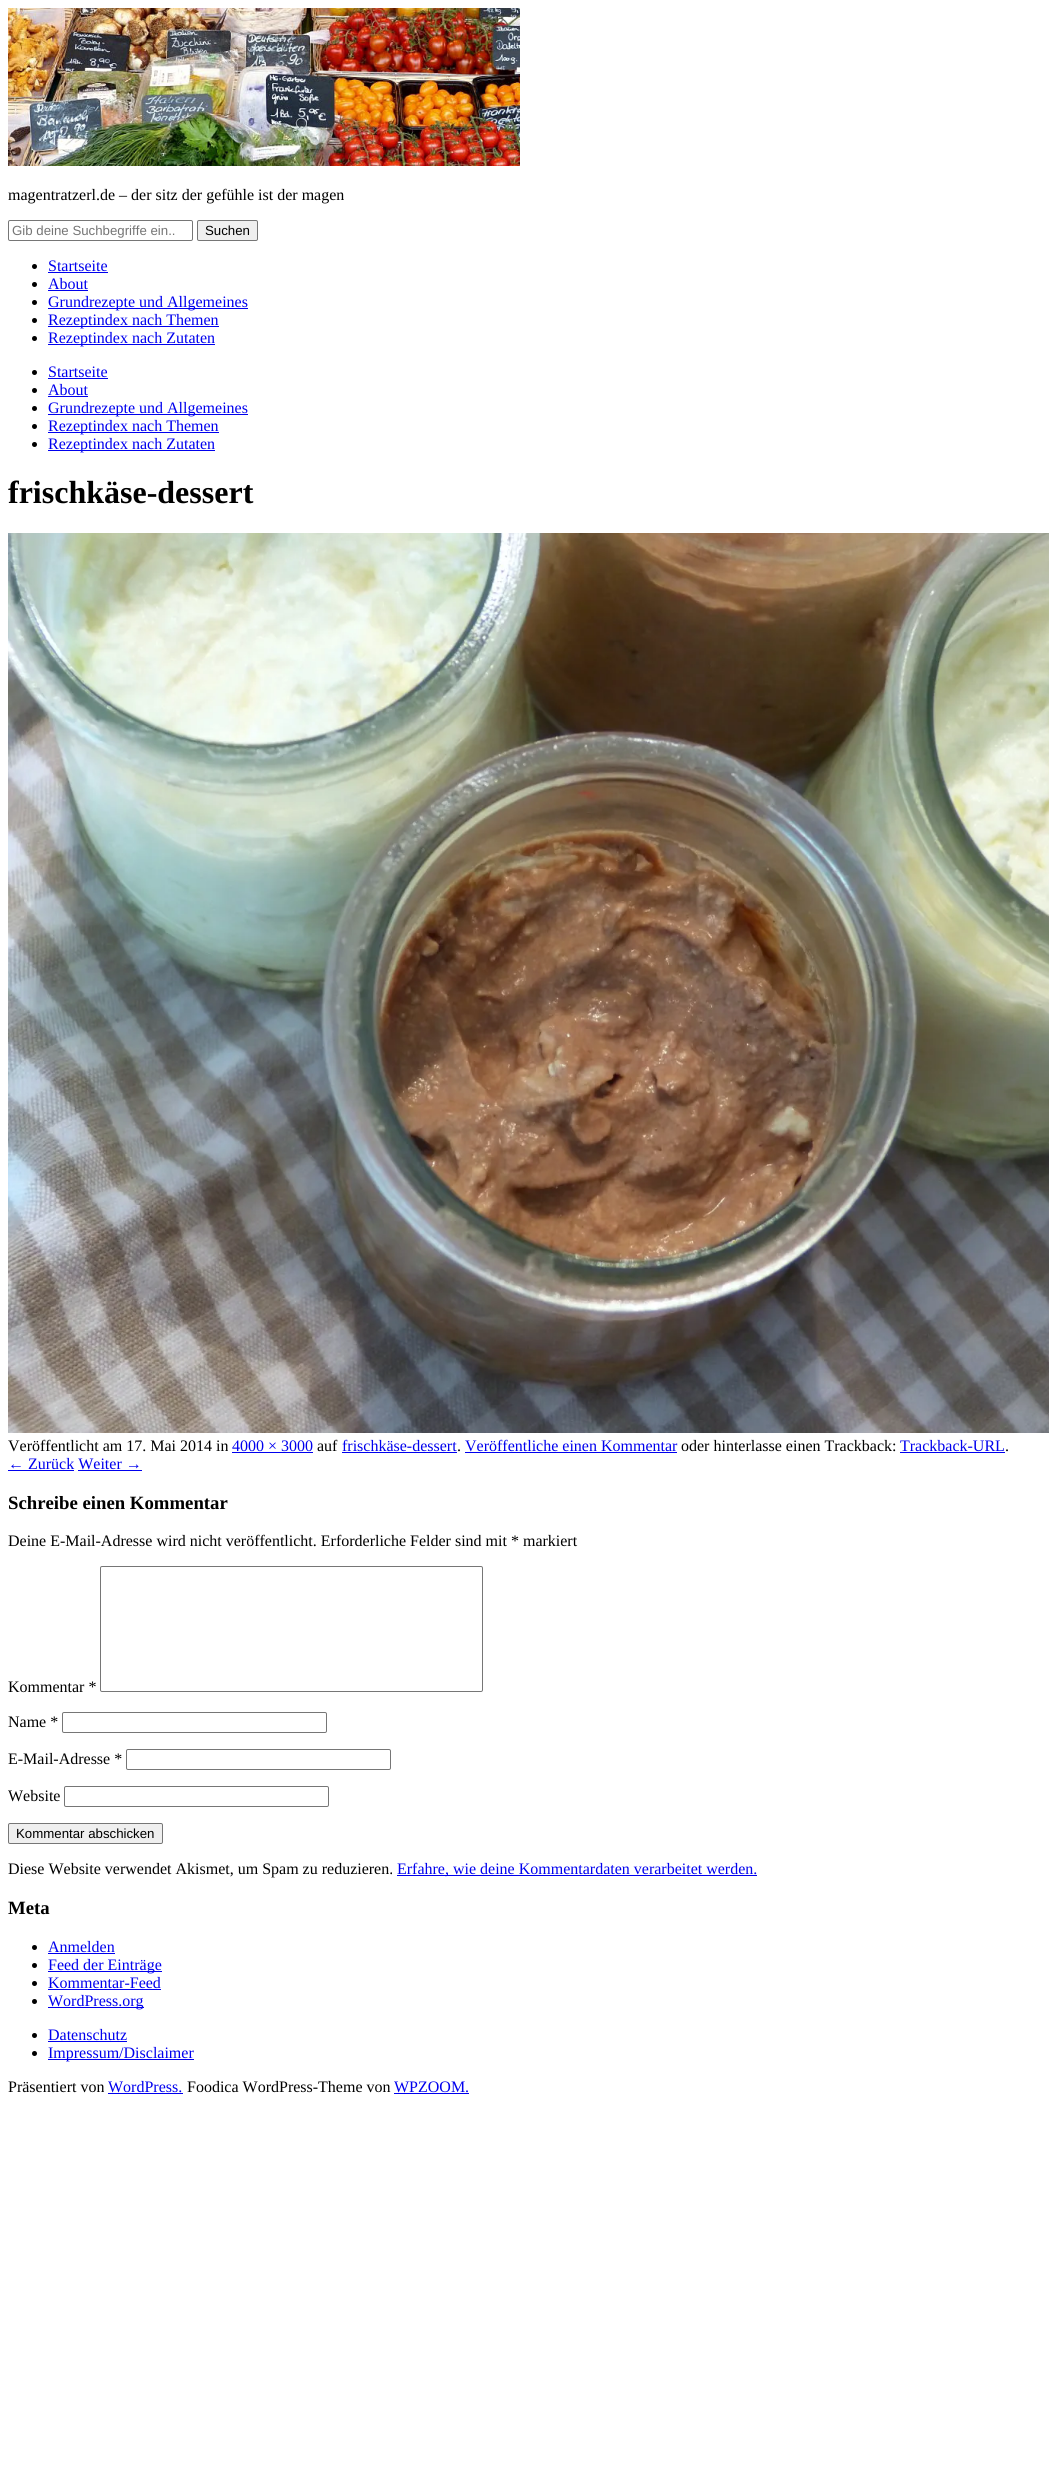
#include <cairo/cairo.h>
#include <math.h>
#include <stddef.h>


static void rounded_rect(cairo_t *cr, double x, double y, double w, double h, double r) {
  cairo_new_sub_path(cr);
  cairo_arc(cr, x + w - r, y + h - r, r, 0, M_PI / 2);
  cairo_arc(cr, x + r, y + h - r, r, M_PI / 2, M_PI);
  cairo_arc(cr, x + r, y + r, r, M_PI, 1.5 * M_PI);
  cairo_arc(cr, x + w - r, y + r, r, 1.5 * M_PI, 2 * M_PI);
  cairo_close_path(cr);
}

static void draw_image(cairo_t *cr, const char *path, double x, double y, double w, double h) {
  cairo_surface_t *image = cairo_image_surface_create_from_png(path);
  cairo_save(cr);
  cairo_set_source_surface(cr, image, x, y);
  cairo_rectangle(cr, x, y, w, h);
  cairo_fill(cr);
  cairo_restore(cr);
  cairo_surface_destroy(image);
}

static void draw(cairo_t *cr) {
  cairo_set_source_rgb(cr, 1, 1, 1);
  cairo_paint(cr);
  draw_image(cr, "images/1.png", 8, 8, 512, 158);
  rounded_rect(cr, 8.5, 220.5, 184, 20, 1.5);
  cairo_set_source_rgb(cr, 118 / 255.0, 118 / 255.0, 118 / 255.0);
  cairo_set_line_width(cr, 1);
  cairo_stroke(cr);
  cairo_set_source_rgb(cr, 239 / 255.0, 239 / 255.0, 239 / 255.0);
  rounded_rect(cr, 197.5, 220.5, 60, 20, 1.5);
  cairo_fill_preserve(cr);
  cairo_set_source_rgb(cr, 118 / 255.0, 118 / 255.0, 118 / 255.0);
  cairo_stroke(cr);
  cairo_set_source_rgb(cr, 0, 0, 0);
  cairo_arc(cr, 34.5, 266.5, 2.5, 0, 2 * M_PI);
  cairo_fill(cr);
  cairo_set_source_rgb(cr, 0, 0, 238 / 255.0);
  cairo_rectangle(cr, 48, 272, 60, 1);
  cairo_fill(cr);
  cairo_set_source_rgb(cr, 0, 0, 0);
  cairo_arc(cr, 34.5, 284.5, 2.5, 0, 2 * M_PI);
  cairo_fill(cr);
  cairo_set_source_rgb(cr, 0, 0, 238 / 255.0);
  cairo_rectangle(cr, 48, 290, 40, 1);
  cairo_fill(cr);
  cairo_set_source_rgb(cr, 0, 0, 0);
  cairo_arc(cr, 34.5, 302.5, 2.5, 0, 2 * M_PI);
  cairo_fill(cr);
  cairo_set_source_rgb(cr, 0, 0, 238 / 255.0);
  cairo_rectangle(cr, 48, 308, 200, 1);
  cairo_fill(cr);
  cairo_set_source_rgb(cr, 0, 0, 0);
  cairo_arc(cr, 34.5, 320.5, 2.5, 0, 2 * M_PI);
  cairo_fill(cr);
  cairo_set_source_rgb(cr, 0, 0, 238 / 255.0);
  cairo_rectangle(cr, 48, 326, 171, 1);
  cairo_fill(cr);
  cairo_set_source_rgb(cr, 0, 0, 0);
  cairo_arc(cr, 34.5, 338.5, 2.5, 0, 2 * M_PI);
  cairo_fill(cr);
  cairo_set_source_rgb(cr, 0, 0, 238 / 255.0);
  cairo_rectangle(cr, 48, 344, 167, 1);
  cairo_fill(cr);
  cairo_set_source_rgb(cr, 0, 0, 0);
  cairo_arc(cr, 34.5, 372.5, 2.5, 0, 2 * M_PI);
  cairo_fill(cr);
  cairo_set_source_rgb(cr, 0, 0, 238 / 255.0);
  cairo_rectangle(cr, 48, 378, 60, 1);
  cairo_fill(cr);
  cairo_set_source_rgb(cr, 0, 0, 0);
  cairo_arc(cr, 34.5, 390.5, 2.5, 0, 2 * M_PI);
  cairo_fill(cr);
  cairo_set_source_rgb(cr, 0, 0, 238 / 255.0);
  cairo_rectangle(cr, 48, 396, 40, 1);
  cairo_fill(cr);
  cairo_set_source_rgb(cr, 0, 0, 0);
  cairo_arc(cr, 34.5, 408.5, 2.5, 0, 2 * M_PI);
  cairo_fill(cr);
  cairo_set_source_rgb(cr, 0, 0, 238 / 255.0);
  cairo_rectangle(cr, 48, 414, 200, 1);
  cairo_fill(cr);
  cairo_set_source_rgb(cr, 0, 0, 0);
  cairo_arc(cr, 34.5, 426.5, 2.5, 0, 2 * M_PI);
  cairo_fill(cr);
  cairo_set_source_rgb(cr, 0, 0, 238 / 255.0);
  cairo_rectangle(cr, 48, 432, 171, 1);
  cairo_fill(cr);
  cairo_set_source_rgb(cr, 0, 0, 0);
  cairo_arc(cr, 34.5, 444.5, 2.5, 0, 2 * M_PI);
  cairo_fill(cr);
  cairo_set_source_rgb(cr, 0, 0, 238 / 255.0);
  cairo_rectangle(cr, 48, 450, 167, 1);
  cairo_fill(cr);
  draw_image(cr, "images/2.png", 8, 533, 1041, 900);
  cairo_rectangle(cr, 232, 1452, 81, 1);
  cairo_fill(cr);
  cairo_rectangle(cr, 342, 1452, 115, 1);
  cairo_fill(cr);
  cairo_rectangle(cr, 465, 1452, 212, 1);
  cairo_fill(cr);
  cairo_rectangle(cr, 900, 1452, 105, 1);
  cairo_fill(cr);
  cairo_rectangle(cr, 8, 1470, 66, 1);
  cairo_fill(cr);
  cairo_rectangle(cr, 78, 1470, 64, 1);
  cairo_fill(cr);
  rounded_rect(cr, 100.5, 1566.5, 382, 125, 1.5);
  cairo_set_source_rgb(cr, 118 / 255.0, 118 / 255.0, 118 / 255.0);
  cairo_stroke(cr);
  rounded_rect(cr, 62.5, 1712.5, 264, 20, 1.5);
  cairo_stroke(cr);
  rounded_rect(cr, 126.5, 1749.5, 264, 20, 1.5);
  cairo_stroke(cr);
  rounded_rect(cr, 64.5, 1786.5, 264, 20, 1.5);
  cairo_stroke(cr);
  cairo_set_source_rgb(cr, 239 / 255.0, 239 / 255.0, 239 / 255.0);
  rounded_rect(cr, 8.5, 1823.5, 154, 20, 1.5);
  cairo_fill_preserve(cr);
  cairo_set_source_rgb(cr, 118 / 255.0, 118 / 255.0, 118 / 255.0);
  cairo_stroke(cr);
  cairo_set_source_rgb(cr, 0, 0, 238 / 255.0);
  cairo_rectangle(cr, 397, 1875, 360, 1);
  cairo_fill(cr);
  cairo_set_source_rgb(cr, 0, 0, 0);
  cairo_arc(cr, 34.5, 1947.5, 2.5, 0, 2 * M_PI);
  cairo_fill(cr);
  cairo_set_source_rgb(cr, 0, 0, 238 / 255.0);
  cairo_rectangle(cr, 48, 1953, 67, 1);
  cairo_fill(cr);
  cairo_set_source_rgb(cr, 0, 0, 0);
  cairo_arc(cr, 34.5, 1965.5, 2.5, 0, 2 * M_PI);
  cairo_fill(cr);
  cairo_set_source_rgb(cr, 0, 0, 238 / 255.0);
  cairo_rectangle(cr, 48, 1971, 114, 1);
  cairo_fill(cr);
  cairo_set_source_rgb(cr, 0, 0, 0);
  cairo_arc(cr, 34.5, 1983.5, 2.5, 0, 2 * M_PI);
  cairo_fill(cr);
  cairo_set_source_rgb(cr, 0, 0, 238 / 255.0);
  cairo_rectangle(cr, 48, 1989, 113, 1);
  cairo_fill(cr);
  cairo_set_source_rgb(cr, 0, 0, 0);
  cairo_arc(cr, 34.5, 2001.5, 2.5, 0, 2 * M_PI);
  cairo_fill(cr);
  cairo_set_source_rgb(cr, 0, 0, 238 / 255.0);
  cairo_rectangle(cr, 48, 2007, 96, 1);
  cairo_fill(cr);
  cairo_set_source_rgb(cr, 0, 0, 0);
  cairo_arc(cr, 34.5, 2035.5, 2.5, 0, 2 * M_PI);
  cairo_fill(cr);
  cairo_set_source_rgb(cr, 0, 0, 238 / 255.0);
  cairo_rectangle(cr, 48, 2041, 79, 1);
  cairo_fill(cr);
  cairo_set_source_rgb(cr, 0, 0, 0);
  cairo_arc(cr, 34.5, 2053.5, 2.5, 0, 2 * M_PI);
  cairo_fill(cr);
  cairo_set_source_rgb(cr, 0, 0, 238 / 255.0);
  cairo_rectangle(cr, 48, 2059, 146, 1);
  cairo_fill(cr);
  cairo_rectangle(cr, 108, 2093, 75, 1);
  cairo_fill(cr);
  cairo_rectangle(cr, 394, 2093, 75, 1);
  cairo_fill(cr);
  cairo_select_font_face(cr, "Liberation Serif", CAIRO_FONT_SLANT_NORMAL, CAIRO_FONT_WEIGHT_NORMAL);
  cairo_set_font_size(cr, 16);
  cairo_set_source_rgb(cr, 0, 0, 0);
  cairo_move_to(cr, 8, 200);
  cairo_show_text(cr, "magentratzerl.de – der sitz der gefühle ist der magen");
  cairo_select_font_face(cr, "Liberation Sans", CAIRO_FONT_SLANT_NORMAL, CAIRO_FONT_WEIGHT_NORMAL);
  cairo_set_font_size(cr, 13.25);
  cairo_set_source_rgb(cr, 117 / 255.0, 117 / 255.0, 117 / 255.0);
  cairo_move_to(cr, 12, 235);
  cairo_show_text(cr, "Gib deine Suchbegriffe ein..");
  cairo_set_source_rgb(cr, 0, 0, 0);
  cairo_move_to(cr, 205, 235);
  cairo_show_text(cr, "Suchen");
  cairo_select_font_face(cr, "Liberation Serif", CAIRO_FONT_SLANT_NORMAL, CAIRO_FONT_WEIGHT_NORMAL);
  cairo_set_font_size(cr, 16);
  cairo_set_source_rgb(cr, 0, 0, 238 / 255.0);
  cairo_move_to(cr, 48, 271);
  cairo_show_text(cr, "Startseite");
  cairo_move_to(cr, 48, 289);
  cairo_show_text(cr, "About");
  cairo_move_to(cr, 48, 307);
  cairo_show_text(cr, "Grundrezepte und Allgemeines");
  cairo_move_to(cr, 48, 325);
  cairo_show_text(cr, "Rezeptindex nach Themen");
  cairo_move_to(cr, 48, 343);
  cairo_show_text(cr, "Rezeptindex nach Zutaten");
  cairo_move_to(cr, 48, 377);
  cairo_show_text(cr, "Startseite");
  cairo_move_to(cr, 48, 395);
  cairo_show_text(cr, "About");
  cairo_move_to(cr, 48, 413);
  cairo_show_text(cr, "Grundrezepte und Allgemeines");
  cairo_move_to(cr, 48, 431);
  cairo_show_text(cr, "Rezeptindex nach Themen");
  cairo_move_to(cr, 48, 449);
  cairo_show_text(cr, "Rezeptindex nach Zutaten");
  cairo_select_font_face(cr, "Liberation Serif", CAIRO_FONT_SLANT_NORMAL, CAIRO_FONT_WEIGHT_BOLD);
  cairo_set_font_size(cr, 32);
  cairo_set_source_rgb(cr, 0, 0, 0);
  cairo_move_to(cr, 8, 503);
  cairo_show_text(cr, "frischkäse-dessert");
  cairo_select_font_face(cr, "Liberation Serif", CAIRO_FONT_SLANT_NORMAL, CAIRO_FONT_WEIGHT_NORMAL);
  cairo_set_font_size(cr, 16);
  cairo_move_to(cr, 8, 1451);
  cairo_show_text(cr, "Veröffentlicht am 17. Mai 2014 in");
  cairo_set_source_rgb(cr, 0, 0, 238 / 255.0);
  cairo_move_to(cr, 232, 1451);
  cairo_show_text(cr, "4000 × 3000");
  cairo_set_source_rgb(cr, 0, 0, 0);
  cairo_move_to(cr, 317, 1451);
  cairo_show_text(cr, "auf");
  cairo_set_source_rgb(cr, 0, 0, 238 / 255.0);
  cairo_move_to(cr, 342, 1451);
  cairo_show_text(cr, "frischkäse-dessert");
  cairo_set_source_rgb(cr, 0, 0, 0);
  cairo_move_to(cr, 457, 1451);
  cairo_show_text(cr, ".");
  cairo_set_source_rgb(cr, 0, 0, 238 / 255.0);
  cairo_move_to(cr, 465, 1451);
  cairo_show_text(cr, "Veröffentliche einen Kommentar");
  cairo_set_source_rgb(cr, 0, 0, 0);
  cairo_move_to(cr, 681, 1451);
  cairo_show_text(cr, "oder hinterlasse einen Trackback:");
  cairo_set_source_rgb(cr, 0, 0, 238 / 255.0);
  cairo_move_to(cr, 900, 1451);
  cairo_show_text(cr, "Trackback-URL");
  cairo_set_source_rgb(cr, 0, 0, 0);
  cairo_move_to(cr, 1005, 1451);
  cairo_show_text(cr, ".");
  cairo_set_source_rgb(cr, 0, 0, 238 / 255.0);
  cairo_move_to(cr, 8, 1469);
  cairo_show_text(cr, "← Zurück Weiter →");
  cairo_select_font_face(cr, "Liberation Serif", CAIRO_FONT_SLANT_NORMAL, CAIRO_FONT_WEIGHT_BOLD);
  cairo_set_font_size(cr, 18.75);
  cairo_set_source_rgb(cr, 0, 0, 0);
  cairo_move_to(cr, 8, 1509);
  cairo_show_text(cr, "Schreibe einen Kommentar");
  cairo_select_font_face(cr, "Liberation Serif", CAIRO_FONT_SLANT_NORMAL, CAIRO_FONT_WEIGHT_NORMAL);
  cairo_set_font_size(cr, 16);
  cairo_move_to(cr, 8, 1546);
  cairo_show_text(cr, "Deine E-Mail-Adresse wird nicht veröffentlicht. Erforderliche Felder sind mit * markiert");
  cairo_move_to(cr, 8, 1692);
  cairo_show_text(cr, "Kommentar *");
  cairo_move_to(cr, 8, 1727);
  cairo_show_text(cr, "Name *");
  cairo_move_to(cr, 8, 1764);
  cairo_show_text(cr, "E-Mail-Adresse *");
  cairo_move_to(cr, 8, 1801);
  cairo_show_text(cr, "Website");
  cairo_select_font_face(cr, "Liberation Sans", CAIRO_FONT_SLANT_NORMAL, CAIRO_FONT_WEIGHT_NORMAL);
  cairo_set_font_size(cr, 13.25);
  cairo_move_to(cr, 16, 1838);
  cairo_show_text(cr, "Kommentar abschicken");
  cairo_select_font_face(cr, "Liberation Serif", CAIRO_FONT_SLANT_NORMAL, CAIRO_FONT_WEIGHT_NORMAL);
  cairo_set_font_size(cr, 16);
  cairo_move_to(cr, 8, 1874);
  cairo_show_text(cr, "Diese Website verwendet Akismet, um Spam zu reduzieren.");
  cairo_set_source_rgb(cr, 0, 0, 238 / 255.0);
  cairo_move_to(cr, 397, 1874);
  cairo_show_text(cr, "Erfahre, wie deine Kommentardaten verarbeitet werden.");
  cairo_select_font_face(cr, "Liberation Serif", CAIRO_FONT_SLANT_NORMAL, CAIRO_FONT_WEIGHT_BOLD);
  cairo_set_font_size(cr, 18.75);
  cairo_set_source_rgb(cr, 0, 0, 0);
  cairo_move_to(cr, 8, 1914);
  cairo_show_text(cr, "Meta");
  cairo_select_font_face(cr, "Liberation Serif", CAIRO_FONT_SLANT_NORMAL, CAIRO_FONT_WEIGHT_NORMAL);
  cairo_set_font_size(cr, 16);
  cairo_set_source_rgb(cr, 0, 0, 238 / 255.0);
  cairo_move_to(cr, 48, 1952);
  cairo_show_text(cr, "Anmelden");
  cairo_move_to(cr, 48, 1970);
  cairo_show_text(cr, "Feed der Einträge");
  cairo_move_to(cr, 48, 1988);
  cairo_show_text(cr, "Kommentar-Feed");
  cairo_move_to(cr, 48, 2006);
  cairo_show_text(cr, "WordPress.org");
  cairo_move_to(cr, 48, 2040);
  cairo_show_text(cr, "Datenschutz");
  cairo_move_to(cr, 48, 2058);
  cairo_show_text(cr, "Impressum/Disclaimer");
  cairo_set_source_rgb(cr, 0, 0, 0);
  cairo_move_to(cr, 8, 2092);
  cairo_show_text(cr, "Präsentiert von");
  cairo_set_source_rgb(cr, 0, 0, 238 / 255.0);
  cairo_move_to(cr, 108, 2092);
  cairo_show_text(cr, "WordPress.");
  cairo_set_source_rgb(cr, 0, 0, 0);
  cairo_move_to(cr, 187, 2092);
  cairo_show_text(cr, "Foodica WordPress-Theme von");
  cairo_set_source_rgb(cr, 0, 0, 238 / 255.0);
  cairo_move_to(cr, 394, 2092);
  cairo_show_text(cr, "WPZOOM.");
}

int main(void) {
  cairo_surface_t *surface = cairo_image_surface_create(CAIRO_FORMAT_RGB24, 1049, 2480);
  cairo_t *cr = cairo_create(surface);
  cairo_font_options_t *options = cairo_font_options_create();
  cairo_font_options_set_hint_metrics(options, CAIRO_HINT_METRICS_OFF);
  cairo_font_options_set_hint_style(options, CAIRO_HINT_STYLE_NONE);
  cairo_set_font_options(cr, options);
  cairo_set_miter_limit(cr, 4);
  draw(cr);
  cairo_surface_write_to_png(surface, "out.png");
  cairo_font_options_destroy(options);
  cairo_destroy(cr);
  cairo_surface_destroy(surface);
  return 0;
}
